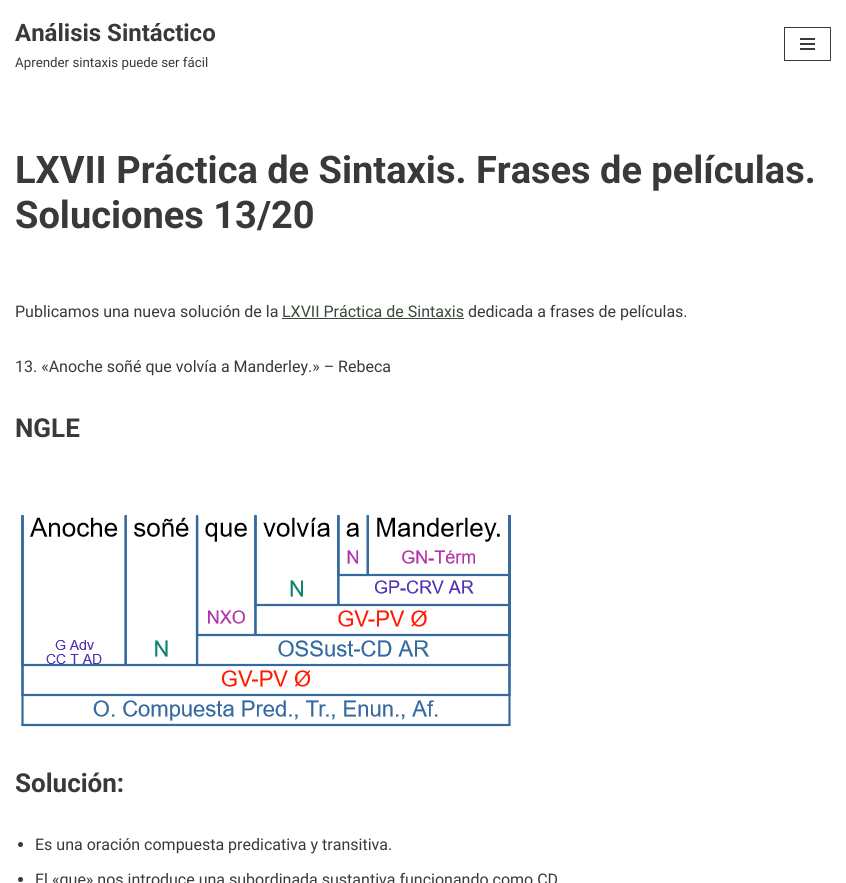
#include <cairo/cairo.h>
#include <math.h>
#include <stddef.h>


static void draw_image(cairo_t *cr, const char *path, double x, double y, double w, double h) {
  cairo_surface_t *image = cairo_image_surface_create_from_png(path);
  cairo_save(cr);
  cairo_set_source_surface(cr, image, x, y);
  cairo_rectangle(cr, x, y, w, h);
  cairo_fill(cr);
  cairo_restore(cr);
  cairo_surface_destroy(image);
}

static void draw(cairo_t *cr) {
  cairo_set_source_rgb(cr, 1, 1, 1);
  cairo_paint(cr);
  cairo_rectangle(cr, 784.5, 27.5, 46, 33);
  cairo_set_source_rgb(cr, 57 / 255.0, 57 / 255.0, 57 / 255.0);
  cairo_set_line_width(cr, 1);
  cairo_stroke(cr);
  cairo_rectangle(cr, 800, 38, 15, 2);
  cairo_fill(cr);
  cairo_rectangle(cr, 800, 43, 15, 2);
  cairo_fill(cr);
  cairo_rectangle(cr, 800, 48, 15, 2);
  cairo_fill(cr);
  cairo_set_source_rgb(cr, 60 / 255.0, 72 / 255.0, 60 / 255.0);
  cairo_rectangle(cr, 282, 318, 182, 1);
  cairo_fill(cr);
  draw_image(cr, "images/1.png", 21, 514, 490, 213);
  cairo_set_source_rgb(cr, 57 / 255.0, 57 / 255.0, 57 / 255.0);
  cairo_arc(cr, 20.5, 844.5, 2.5, 0, 2 * M_PI);
  cairo_fill(cr);
  cairo_arc(cr, 20.5, 879.5, 2.5, 0, 2 * M_PI);
  cairo_fill(cr);
  cairo_select_font_face(cr, "Roboto", CAIRO_FONT_SLANT_NORMAL, CAIRO_FONT_WEIGHT_BOLD);
  cairo_set_font_size(cr, 24);
  cairo_move_to(cr, 15, 41);
  cairo_show_text(cr, "Análisis Sintáctico");
  cairo_select_font_face(cr, "Roboto", CAIRO_FONT_SLANT_NORMAL, CAIRO_FONT_WEIGHT_NORMAL);
  cairo_set_font_size(cr, 13.3);
  cairo_move_to(cr, 15, 67);
  cairo_show_text(cr, "Aprender sintaxis puede ser fácil");
  cairo_select_font_face(cr, "Roboto", CAIRO_FONT_SLANT_NORMAL, CAIRO_FONT_WEIGHT_BOLD);
  cairo_set_font_size(cr, 38);
  cairo_move_to(cr, 15, 183);
  cairo_show_text(cr, "LXVII Práctica de Sintaxis. Frases de películas.");
  cairo_move_to(cr, 15, 228);
  cairo_show_text(cr, "Soluciones 13/20");
  cairo_select_font_face(cr, "Roboto", CAIRO_FONT_SLANT_NORMAL, CAIRO_FONT_WEIGHT_NORMAL);
  cairo_set_font_size(cr, 16);
  cairo_move_to(cr, 15, 317);
  cairo_show_text(cr, "Publicamos una nueva solución de la");
  cairo_set_source_rgb(cr, 60 / 255.0, 72 / 255.0, 60 / 255.0);
  cairo_move_to(cr, 282, 317);
  cairo_show_text(cr, "LXVII Práctica de Sintaxis");
  cairo_set_source_rgb(cr, 57 / 255.0, 57 / 255.0, 57 / 255.0);
  cairo_move_to(cr, 468, 317);
  cairo_show_text(cr, "dedicada a frases de películas.");
  cairo_move_to(cr, 15, 372);
  cairo_show_text(cr, "13. «Anoche soñé que volvía a Manderley.» – Rebeca");
  cairo_select_font_face(cr, "Roboto", CAIRO_FONT_SLANT_NORMAL, CAIRO_FONT_WEIGHT_BOLD);
  cairo_set_font_size(cr, 26);
  cairo_move_to(cr, 15, 437);
  cairo_show_text(cr, "NGLE");
  cairo_move_to(cr, 15, 792);
  cairo_show_text(cr, "Solución:");
  cairo_select_font_face(cr, "Roboto", CAIRO_FONT_SLANT_NORMAL, CAIRO_FONT_WEIGHT_NORMAL);
  cairo_set_font_size(cr, 16);
  cairo_move_to(cr, 35, 850);
  cairo_show_text(cr, "Es una oración compuesta predicativa y transitiva.");
  cairo_move_to(cr, 35, 885);
  cairo_show_text(cr, "El «que» nos introduce una subordinada sustantiva funcionando como CD");
}

int main(void) {
  cairo_surface_t *surface = cairo_image_surface_create(CAIRO_FORMAT_RGB24, 846, 883);
  cairo_t *cr = cairo_create(surface);
  cairo_font_options_t *options = cairo_font_options_create();
  cairo_font_options_set_hint_metrics(options, CAIRO_HINT_METRICS_OFF);
  cairo_font_options_set_hint_style(options, CAIRO_HINT_STYLE_NONE);
  cairo_set_font_options(cr, options);
  cairo_set_miter_limit(cr, 4);
  draw(cr);
  cairo_surface_write_to_png(surface, "out.png");
  cairo_font_options_destroy(options);
  cairo_destroy(cr);
  cairo_surface_destroy(surface);
  return 0;
}
